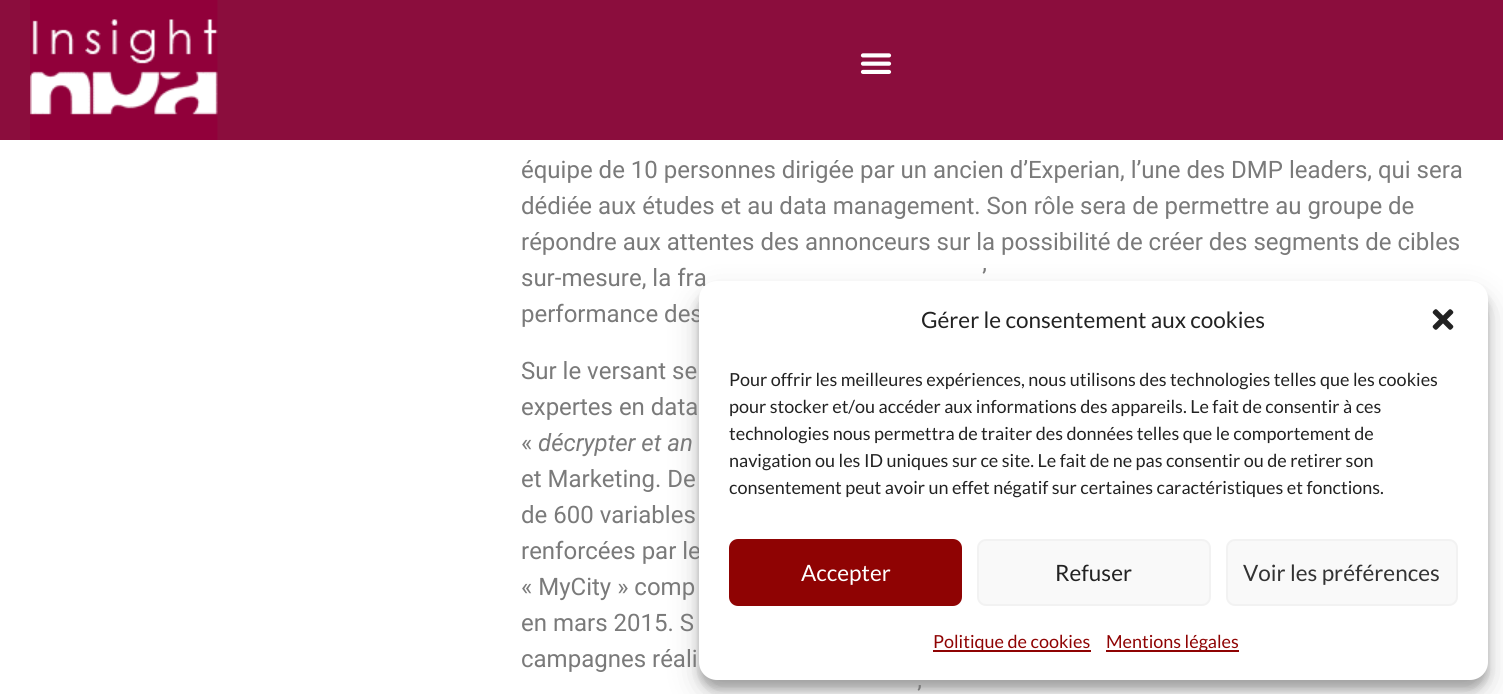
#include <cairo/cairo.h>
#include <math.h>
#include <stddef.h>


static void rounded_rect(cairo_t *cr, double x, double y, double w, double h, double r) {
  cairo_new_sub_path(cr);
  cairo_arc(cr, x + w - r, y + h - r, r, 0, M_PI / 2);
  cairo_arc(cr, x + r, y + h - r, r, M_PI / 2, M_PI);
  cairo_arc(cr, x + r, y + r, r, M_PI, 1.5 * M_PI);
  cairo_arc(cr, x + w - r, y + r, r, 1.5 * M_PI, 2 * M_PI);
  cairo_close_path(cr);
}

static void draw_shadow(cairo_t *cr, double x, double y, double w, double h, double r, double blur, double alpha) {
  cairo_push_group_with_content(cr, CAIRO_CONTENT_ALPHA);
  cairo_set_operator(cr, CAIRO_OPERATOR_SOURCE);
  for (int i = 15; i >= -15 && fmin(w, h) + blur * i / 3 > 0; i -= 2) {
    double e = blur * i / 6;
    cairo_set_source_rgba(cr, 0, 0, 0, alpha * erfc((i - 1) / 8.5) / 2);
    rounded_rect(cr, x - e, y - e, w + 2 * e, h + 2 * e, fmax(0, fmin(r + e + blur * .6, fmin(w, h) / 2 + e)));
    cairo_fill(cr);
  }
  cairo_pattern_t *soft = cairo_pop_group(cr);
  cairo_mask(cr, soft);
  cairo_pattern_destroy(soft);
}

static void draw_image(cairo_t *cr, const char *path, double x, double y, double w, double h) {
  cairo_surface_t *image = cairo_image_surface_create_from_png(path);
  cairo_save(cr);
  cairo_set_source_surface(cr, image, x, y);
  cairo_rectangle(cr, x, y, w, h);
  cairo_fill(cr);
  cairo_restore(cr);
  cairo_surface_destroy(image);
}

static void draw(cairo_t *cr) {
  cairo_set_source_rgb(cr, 1, 1, 1);
  cairo_paint(cr);
  cairo_set_source_rgb(cr, 139 / 255.0, 13 / 255.0, 61 / 255.0);
  cairo_rectangle(cr, 0, 0, 1503, 140);
  cairo_fill(cr);
  draw_image(cr, "images/1.png", 30, 0, 188, 140);
  draw_image(cr, "images/2.png", 860, 53, 32, 21);
  cairo_set_source_rgb(cr, 0, 0, 0);
  draw_shadow(cr, 699, 290, 789, 399, 18, 4.5, 0.23);
  draw_shadow(cr, 699, 296, 789, 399, 18, 15, 0.19);
  cairo_select_font_face(cr, "Roboto", CAIRO_FONT_SLANT_NORMAL, CAIRO_FONT_WEIGHT_NORMAL);
  cairo_set_font_size(cr, 24);
  cairo_set_source_rgb(cr, 122 / 255.0, 122 / 255.0, 122 / 255.0);
  cairo_move_to(cr, 521, 178);
  cairo_show_text(cr, "équipe de 10 personnes dirigée par un ancien d’Experian, l’une des DMP leaders, qui sera");
  cairo_move_to(cr, 521, 214);
  cairo_show_text(cr, "dédiée aux études et au data management. Son rôle sera de permettre au groupe de");
  cairo_move_to(cr, 521, 250);
  cairo_show_text(cr, "répondre aux attentes des annonceurs sur la possibilité de créer des segments de cibles");
  cairo_move_to(cr, 521, 286);
  cairo_show_text(cr, "sur-mesure, la fra");
  cairo_move_to(cr, 982, 286);
  cairo_show_text(cr, "’");
  cairo_move_to(cr, 521, 322);
  cairo_show_text(cr, "performance des");
  cairo_move_to(cr, 521, 379);
  cairo_show_text(cr, "Sur le versant se");
  cairo_move_to(cr, 521, 415);
  cairo_show_text(cr, "expertes en data");
  cairo_move_to(cr, 521, 451);
  cairo_show_text(cr, "«");
  cairo_select_font_face(cr, "Roboto", CAIRO_FONT_SLANT_ITALIC, CAIRO_FONT_WEIGHT_NORMAL);
  cairo_move_to(cr, 538, 451);
  cairo_show_text(cr, "décrypter et an");
  cairo_select_font_face(cr, "Roboto", CAIRO_FONT_SLANT_NORMAL, CAIRO_FONT_WEIGHT_NORMAL);
  cairo_move_to(cr, 521, 487);
  cairo_show_text(cr, "et Marketing. De");
  cairo_move_to(cr, 521, 523);
  cairo_show_text(cr, "de 600 variables");
  cairo_move_to(cr, 521, 559);
  cairo_show_text(cr, "renforcées par le");
  cairo_move_to(cr, 521, 595);
  cairo_show_text(cr, "« MyCity » comp");
  cairo_move_to(cr, 521, 631);
  cairo_show_text(cr, "en mars 2015. S");
  cairo_move_to(cr, 521, 667);
  cairo_show_text(cr, "campagnes réali");
  cairo_move_to(cr, 917, 703);
  cairo_show_text(cr, "’");
  cairo_set_source_rgb(cr, 1, 1, 1);
  rounded_rect(cr, 699, 281, 789, 399, 18);
  cairo_fill(cr);
  cairo_select_font_face(cr, "Lato", CAIRO_FONT_SLANT_NORMAL, CAIRO_FONT_WEIGHT_NORMAL);
  cairo_set_font_size(cr, 22.5);
  cairo_set_source_rgb(cr, 34 / 255.0, 34 / 255.0, 34 / 255.0);
  cairo_move_to(cr, 921, 328);
  cairo_show_text(cr, "Gérer le consentement aux cookies");
  draw_image(cr, "images/3.png", 1432, 309, 22, 21);
  cairo_set_font_size(cr, 18);
  cairo_move_to(cr, 729, 386);
  cairo_show_text(cr, "Pour offrir les meilleures expériences, nous utilisons des technologies telles que les cookies");
  cairo_move_to(cr, 729, 413);
  cairo_show_text(cr, "pour stocker et/ou accéder aux informations des appareils. Le fait de consentir à ces");
  cairo_move_to(cr, 729, 440);
  cairo_show_text(cr, "technologies nous permettra de traiter des données telles que le comportement de");
  cairo_move_to(cr, 729, 467);
  cairo_show_text(cr, "navigation ou les ID uniques sur ce site. Le fait de ne pas consentir ou de retirer son");
  cairo_move_to(cr, 729, 494);
  cairo_show_text(cr, "consentement peut avoir un effet négatif sur certaines caractéristiques et fonctions.");
  cairo_set_source_rgb(cr, 143 / 255.0, 3 / 255.0, 3 / 255.0);
  rounded_rect(cr, 730, 540, 231, 65, 8);
  cairo_fill_preserve(cr);
  cairo_stroke(cr);
  cairo_set_font_size(cr, 22.5);
  cairo_set_source_rgb(cr, 1, 1, 1);
  cairo_move_to(cr, 801, 581);
  cairo_show_text(cr, "Accepter");
  cairo_set_source_rgb(cr, 249 / 255.0, 249 / 255.0, 249 / 255.0);
  rounded_rect(cr, 978, 540, 232, 65, 8);
  cairo_fill_preserve(cr);
  cairo_set_source_rgb(cr, 242 / 255.0, 242 / 255.0, 242 / 255.0);
  cairo_stroke(cr);
  cairo_set_source_rgb(cr, 34 / 255.0, 34 / 255.0, 34 / 255.0);
  cairo_move_to(cr, 1055, 581);
  cairo_show_text(cr, "Refuser");
  cairo_set_source_rgb(cr, 249 / 255.0, 249 / 255.0, 249 / 255.0);
  rounded_rect(cr, 1227, 540, 230, 65, 8);
  cairo_fill_preserve(cr);
  cairo_set_source_rgb(cr, 242 / 255.0, 242 / 255.0, 242 / 255.0);
  cairo_stroke(cr);
  cairo_set_source_rgb(cr, 51 / 255.0, 51 / 255.0, 51 / 255.0);
  cairo_move_to(cr, 1243, 581);
  cairo_show_text(cr, "Voir les préférences");
  cairo_set_source_rgb(cr, 143 / 255.0, 3 / 255.0, 3 / 255.0);
  cairo_rectangle(cr, 933, 650, 158, 2);
  cairo_fill(cr);
  cairo_set_font_size(cr, 18);
  cairo_move_to(cr, 933, 648);
  cairo_show_text(cr, "Politique de cookies");
  cairo_rectangle(cr, 1106, 650, 133, 2);
  cairo_fill(cr);
  cairo_move_to(cr, 1106, 648);
  cairo_show_text(cr, "Mentions légales");
}

int main(void) {
  cairo_surface_t *surface = cairo_image_surface_create(CAIRO_FORMAT_RGB24, 1503, 694);
  cairo_t *cr = cairo_create(surface);
  cairo_font_options_t *options = cairo_font_options_create();
  cairo_font_options_set_hint_metrics(options, CAIRO_HINT_METRICS_OFF);
  cairo_font_options_set_hint_style(options, CAIRO_HINT_STYLE_NONE);
  cairo_set_font_options(cr, options);
  cairo_set_miter_limit(cr, 4);
  draw(cr);
  cairo_surface_write_to_png(surface, "out.png");
  cairo_font_options_destroy(options);
  cairo_destroy(cr);
  cairo_surface_destroy(surface);
  return 0;
}
